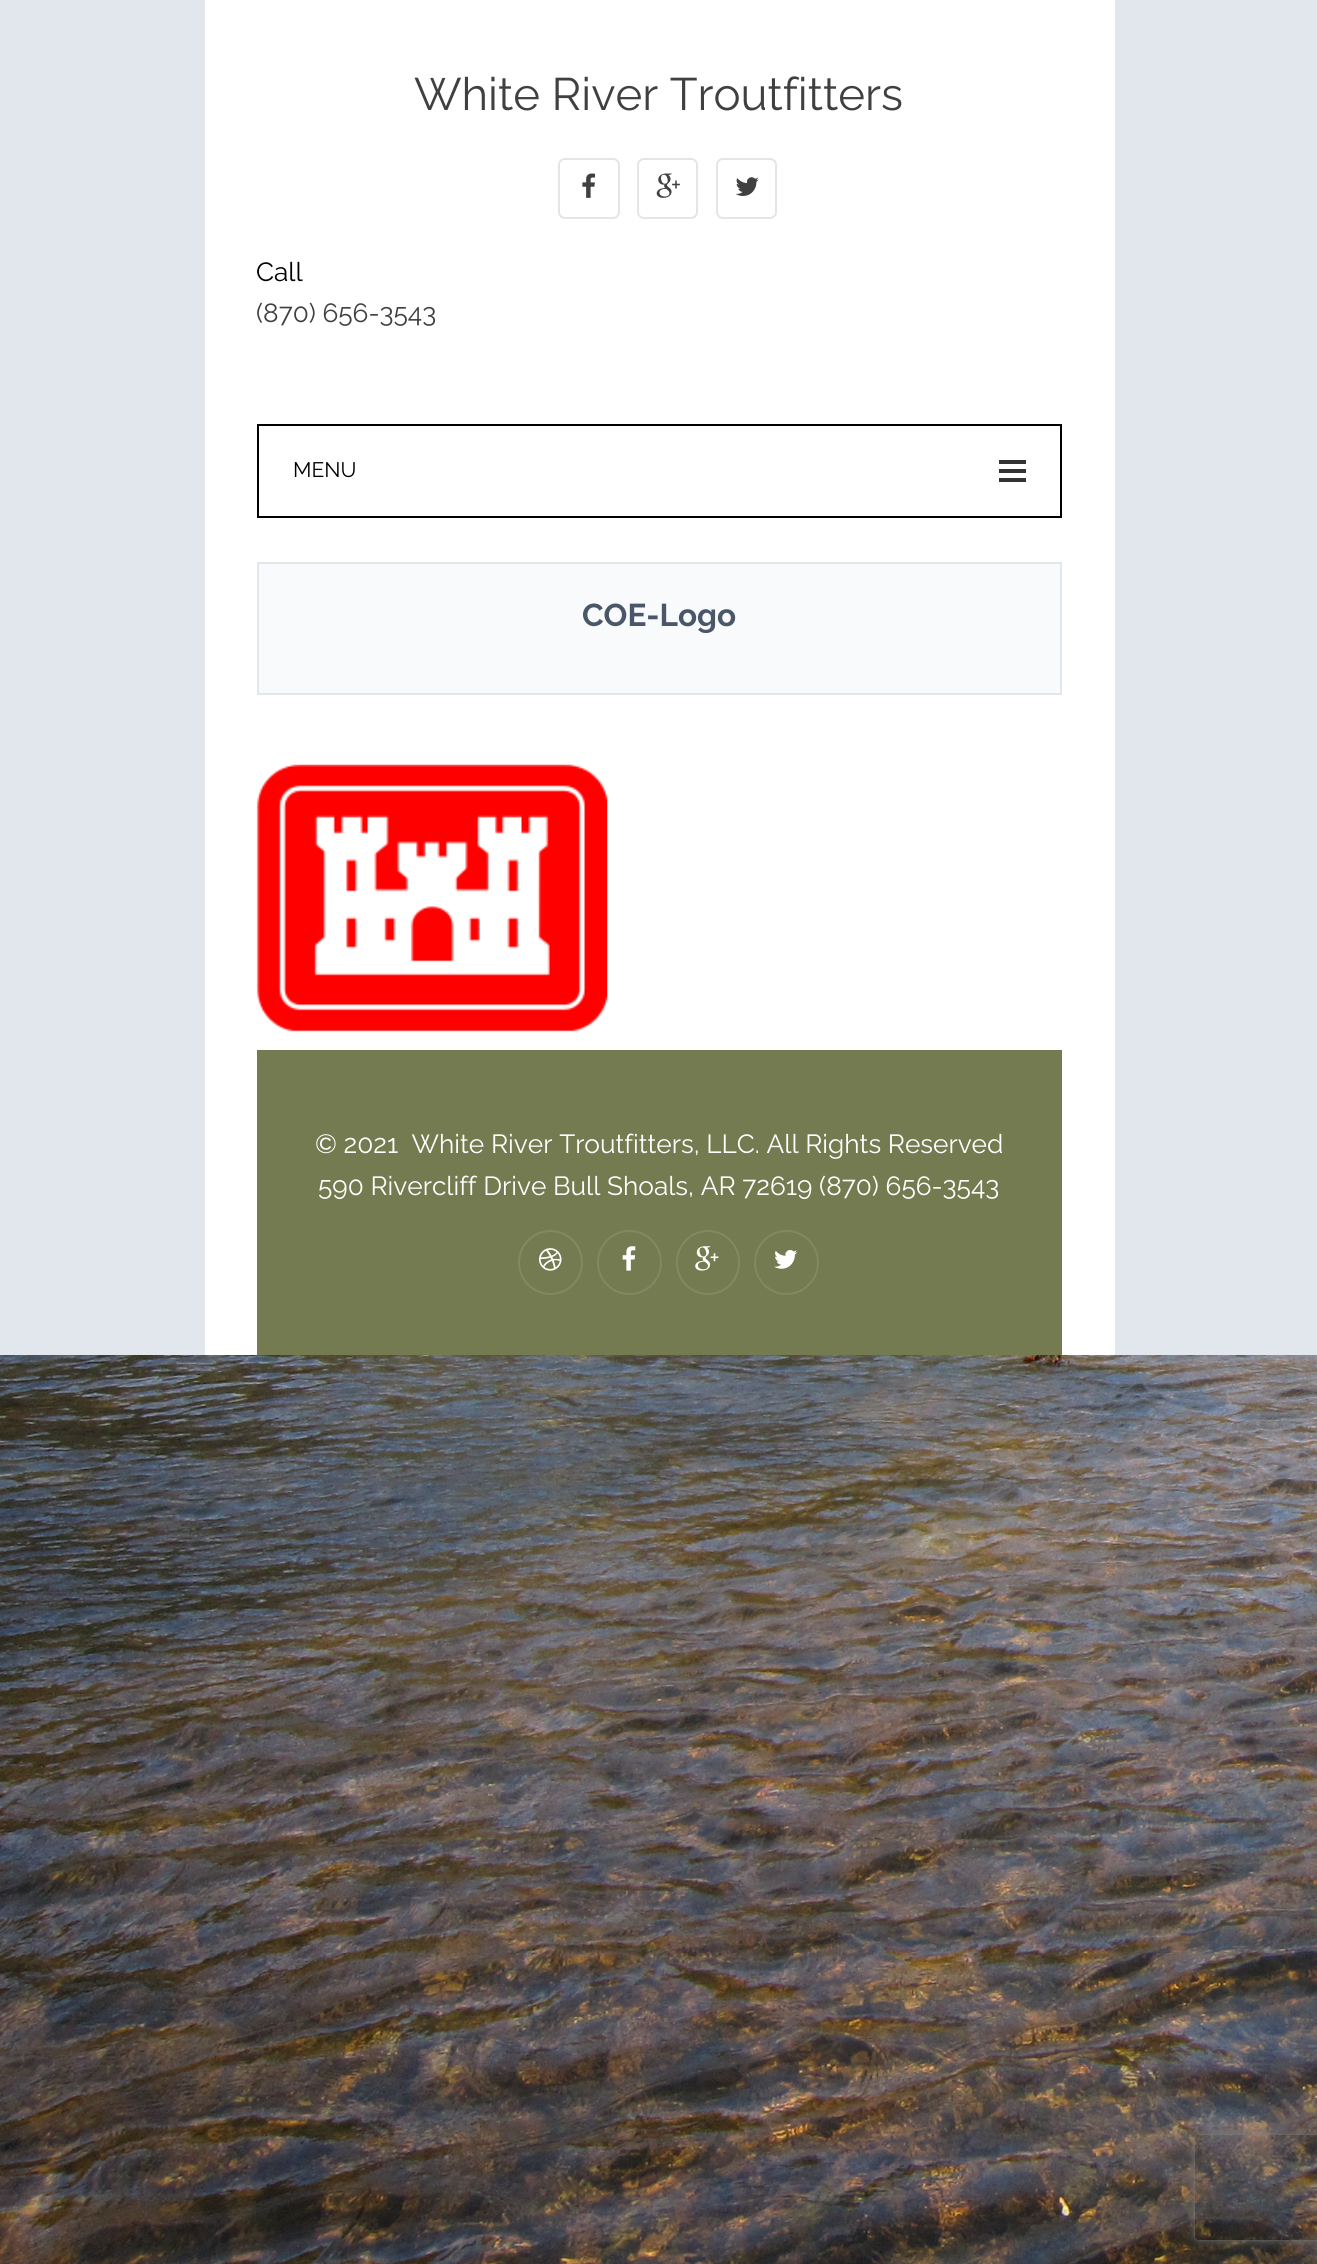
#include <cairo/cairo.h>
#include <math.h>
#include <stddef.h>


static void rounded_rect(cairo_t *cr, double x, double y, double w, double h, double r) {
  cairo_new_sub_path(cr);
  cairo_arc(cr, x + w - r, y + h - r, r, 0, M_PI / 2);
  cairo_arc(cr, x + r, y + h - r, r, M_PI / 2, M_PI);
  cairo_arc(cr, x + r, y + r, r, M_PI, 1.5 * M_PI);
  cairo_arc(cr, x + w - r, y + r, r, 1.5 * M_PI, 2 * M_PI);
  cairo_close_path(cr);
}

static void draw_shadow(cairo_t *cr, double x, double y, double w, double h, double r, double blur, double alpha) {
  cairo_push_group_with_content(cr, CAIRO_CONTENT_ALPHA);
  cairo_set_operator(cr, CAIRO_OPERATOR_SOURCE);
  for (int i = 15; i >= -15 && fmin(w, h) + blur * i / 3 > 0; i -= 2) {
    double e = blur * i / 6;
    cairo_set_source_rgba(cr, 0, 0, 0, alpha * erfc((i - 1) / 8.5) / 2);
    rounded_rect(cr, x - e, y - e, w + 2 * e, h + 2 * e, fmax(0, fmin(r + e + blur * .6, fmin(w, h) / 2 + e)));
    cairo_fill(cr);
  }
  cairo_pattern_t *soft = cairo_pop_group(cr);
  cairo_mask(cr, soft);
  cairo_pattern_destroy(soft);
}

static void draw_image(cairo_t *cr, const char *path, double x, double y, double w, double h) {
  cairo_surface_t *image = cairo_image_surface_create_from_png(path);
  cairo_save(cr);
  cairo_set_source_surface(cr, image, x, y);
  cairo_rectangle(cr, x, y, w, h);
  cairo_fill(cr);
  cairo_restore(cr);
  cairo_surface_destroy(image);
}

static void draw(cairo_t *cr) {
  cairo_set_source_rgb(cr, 1, 1, 1);
  cairo_paint(cr);
  draw_image(cr, "images/1.png", 0, 1355, 1317, 909);
  cairo_set_source_rgb(cr, 226 / 255.0, 230 / 255.0, 237 / 255.0);
  cairo_rectangle(cr, 0, 0, 1317, 1355);
  cairo_fill(cr);
  cairo_set_source_rgb(cr, 1, 1, 1);
  cairo_rectangle(cr, 205, 0, 910, 1355);
  cairo_fill(cr);
  rounded_rect(cr, 559, 159, 60, 59, 6);
  cairo_set_source_rgb(cr, 229 / 255.0, 229 / 255.0, 229 / 255.0);
  cairo_stroke(cr);
  draw_image(cr, "images/2.png", 582, 173, 14, 25);
  rounded_rect(cr, 638, 159, 59, 59, 6);
  cairo_stroke(cr);
  draw_image(cr, "images/3.png", 656, 173, 24, 25);
  rounded_rect(cr, 717, 159, 59, 59, 6);
  cairo_stroke(cr);
  draw_image(cr, "images/4.png", 735, 177, 24, 19);
  cairo_rectangle(cr, 258, 425, 803, 92);
  cairo_set_source_rgb(cr, 0, 0, 0);
  cairo_stroke(cr);
  cairo_set_source_rgb(cr, 51 / 255.0, 51 / 255.0, 51 / 255.0);
  cairo_rectangle(cr, 999, 460, 27, 4);
  cairo_fill(cr);
  cairo_rectangle(cr, 999, 469, 27, 4);
  cairo_fill(cr);
  cairo_rectangle(cr, 999, 478, 27, 4);
  cairo_fill(cr);
  cairo_set_source_rgb(cr, 249 / 255.0, 250 / 255.0, 251 / 255.0);
  cairo_rectangle(cr, 258, 563, 803, 131);
  cairo_fill_preserve(cr);
  cairo_set_source_rgb(cr, 226 / 255.0, 230 / 255.0, 237 / 255.0);
  cairo_stroke(cr);
  draw_image(cr, "images/5.png", 256, 764, 352, 268);
  cairo_set_source_rgb(cr, 117 / 255.0, 123 / 255.0, 80 / 255.0);
  cairo_rectangle(cr, 257, 1050, 805, 305);
  cairo_fill(cr);
  cairo_arc(cr, 550.5, 1262.5, 31.5, 0, 2 * M_PI);
  cairo_set_source_rgb(cr, 131 / 255.0, 136 / 255.0, 98 / 255.0);
  cairo_stroke(cr);
  draw_image(cr, "images/6.png", 539, 1248, 23, 23);
  cairo_arc(cr, 629.5, 1262.5, 31.5, 0, 2 * M_PI);
  cairo_stroke(cr);
  draw_image(cr, "images/7.png", 622, 1246, 14, 25);
  rounded_rect(cr, 677, 1231, 62, 63, 31);
  cairo_stroke(cr);
  draw_image(cr, "images/8.png", 695, 1246, 24, 25);
  cairo_arc(cr, 786.5, 1262.5, 31.5, 0, 2 * M_PI);
  cairo_stroke(cr);
  draw_image(cr, "images/9.png", 774, 1250, 24, 19);
  cairo_save(cr);
  cairo_set_fill_rule(cr, CAIRO_FILL_RULE_EVEN_ODD);
  cairo_new_path(cr);
  cairo_move_to(cr, 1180, 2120);
  cairo_line_to(cr, 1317, 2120);
  cairo_line_to(cr, 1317, 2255);
  cairo_line_to(cr, 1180, 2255);
  cairo_close_path(cr);
  cairo_move_to(cr, 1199, 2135);
  cairo_line_to(cr, 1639, 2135);
  cairo_curve_to(cr, 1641, 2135, 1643, 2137, 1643, 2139);
  cairo_line_to(cr, 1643, 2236);
  cairo_curve_to(cr, 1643, 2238, 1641, 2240, 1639, 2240);
  cairo_line_to(cr, 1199, 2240);
  cairo_curve_to(cr, 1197, 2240, 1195, 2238, 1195, 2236);
  cairo_line_to(cr, 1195, 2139);
  cairo_curve_to(cr, 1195, 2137, 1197, 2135, 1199, 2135);
  cairo_close_path(cr);
  cairo_clip(cr);
  cairo_set_source_rgb(cr, 128 / 255.0, 128 / 255.0, 128 / 255.0);
  draw_shadow(cr, 1195, 2135, 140, 105, 4, 4.5, 1);
  cairo_restore(cr);
  cairo_select_font_face(cr, "Raleway", CAIRO_FONT_SLANT_NORMAL, CAIRO_FONT_WEIGHT_NORMAL);
  cairo_set_font_size(cr, 45.5);
  cairo_set_source_rgb(cr, 64 / 255.0, 64 / 255.0, 64 / 255.0);
  cairo_move_to(cr, 414, 110);
  cairo_show_text(cr, "White River Troutfitters");
  cairo_set_font_size(cr, 26.25);
  cairo_set_source_rgb(cr, 0, 0, 0);
  cairo_move_to(cr, 256, 281);
  cairo_show_text(cr, "Call");
  cairo_set_source_rgb(cr, 64 / 255.0, 64 / 255.0, 64 / 255.0);
  cairo_move_to(cr, 256, 322);
  cairo_show_text(cr, "(870) 656-3543");
  cairo_set_font_size(cr, 21);
  cairo_set_source_rgb(cr, 0, 0, 0);
  cairo_move_to(cr, 293, 477);
  cairo_show_text(cr, "MENU");
  cairo_select_font_face(cr, "Raleway", CAIRO_FONT_SLANT_NORMAL, CAIRO_FONT_WEIGHT_BOLD);
  cairo_set_font_size(cr, 31.5);
  cairo_set_source_rgb(cr, 74 / 255.0, 87 / 255.0, 104 / 255.0);
  cairo_move_to(cr, 582, 626);
  cairo_show_text(cr, "COE-Logo");
  cairo_select_font_face(cr, "Raleway", CAIRO_FONT_SLANT_NORMAL, CAIRO_FONT_WEIGHT_NORMAL);
  cairo_set_font_size(cr, 26.25);
  cairo_set_source_rgb(cr, 1, 1, 1);
  cairo_move_to(cr, 315, 1153);
  cairo_show_text(cr, "© 2021  White River Troutfitters, LLC. All Rights Reserved");
  cairo_move_to(cr, 318, 1195);
  cairo_show_text(cr, "590 Rivercliff Drive Bull Shoals, AR 72619 (870) 656-3543");
}

int main(void) {
  cairo_surface_t *surface = cairo_image_surface_create(CAIRO_FORMAT_RGB24, 1317, 2264);
  cairo_t *cr = cairo_create(surface);
  cairo_font_options_t *options = cairo_font_options_create();
  cairo_font_options_set_hint_metrics(options, CAIRO_HINT_METRICS_OFF);
  cairo_font_options_set_hint_style(options, CAIRO_HINT_STYLE_NONE);
  cairo_set_font_options(cr, options);
  cairo_set_miter_limit(cr, 4);
  draw(cr);
  cairo_surface_write_to_png(surface, "out.png");
  cairo_font_options_destroy(options);
  cairo_destroy(cr);
  cairo_surface_destroy(surface);
  return 0;
}
